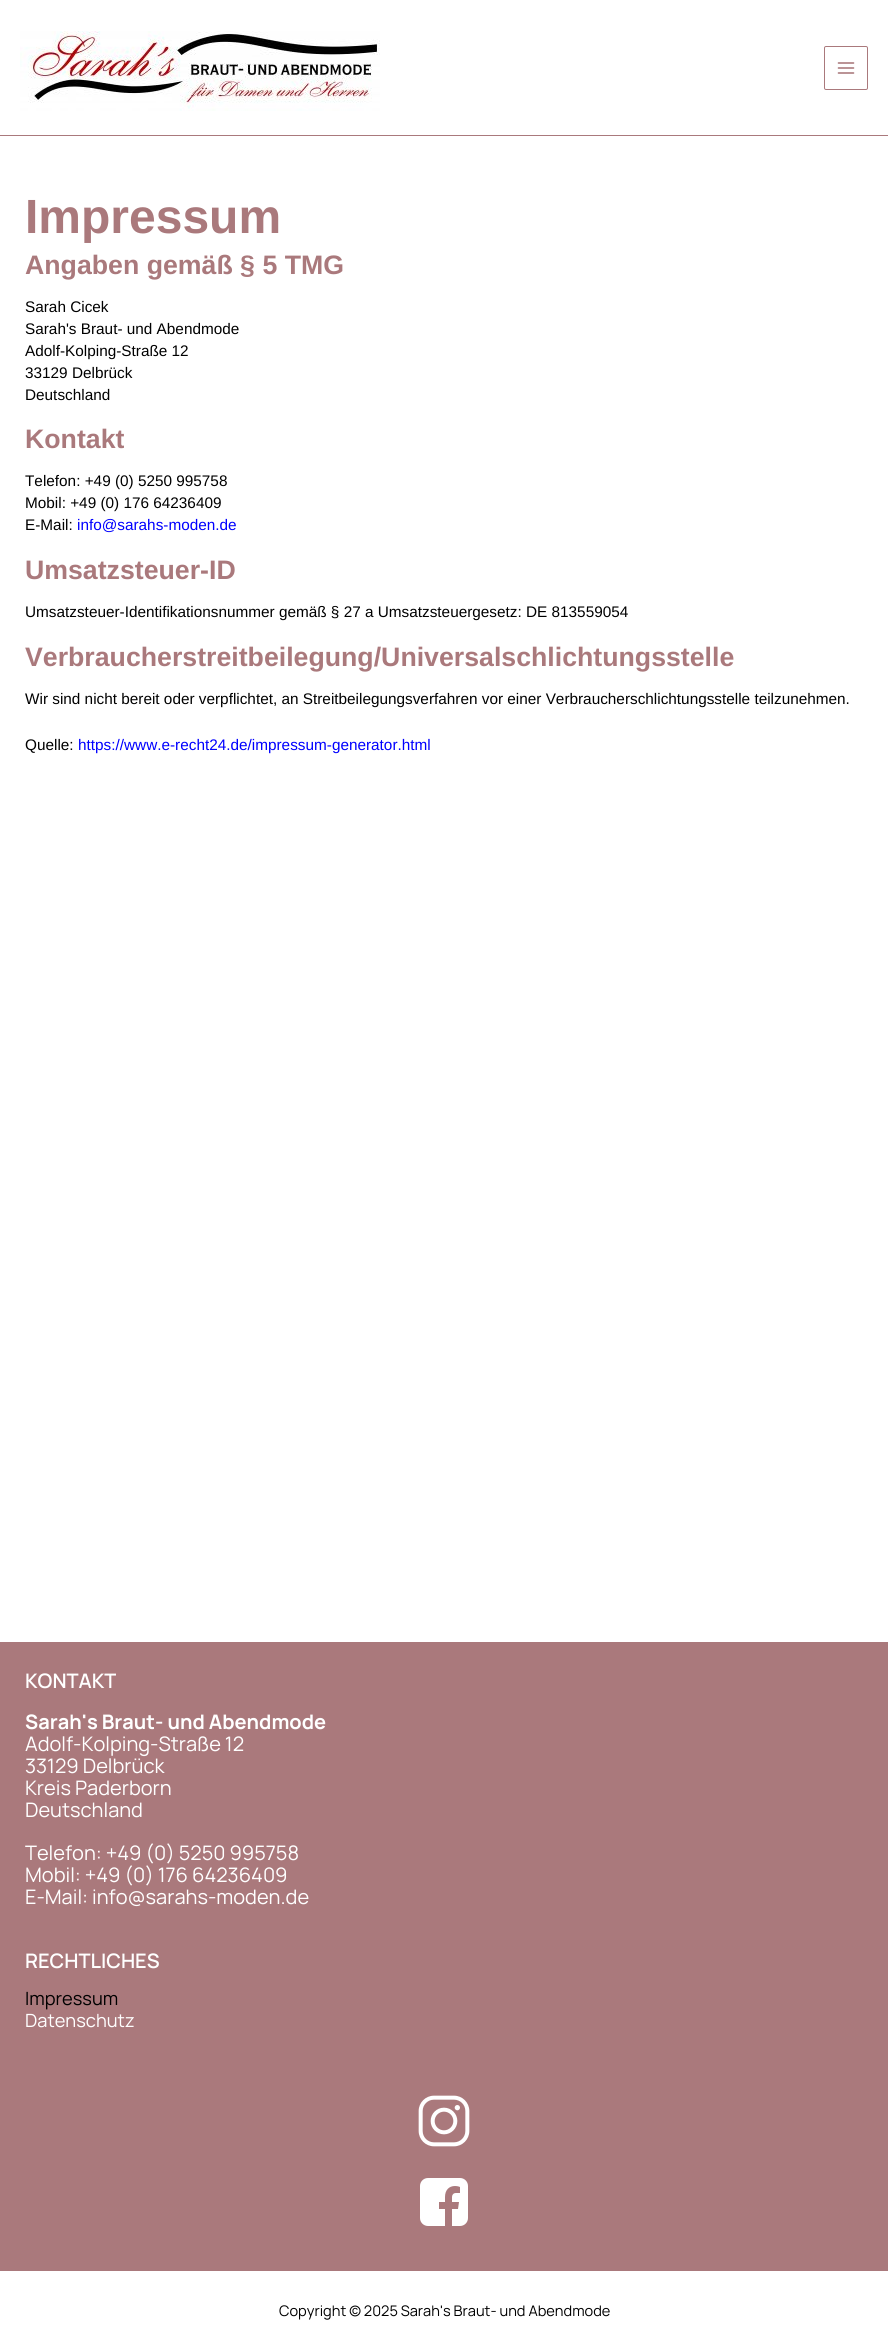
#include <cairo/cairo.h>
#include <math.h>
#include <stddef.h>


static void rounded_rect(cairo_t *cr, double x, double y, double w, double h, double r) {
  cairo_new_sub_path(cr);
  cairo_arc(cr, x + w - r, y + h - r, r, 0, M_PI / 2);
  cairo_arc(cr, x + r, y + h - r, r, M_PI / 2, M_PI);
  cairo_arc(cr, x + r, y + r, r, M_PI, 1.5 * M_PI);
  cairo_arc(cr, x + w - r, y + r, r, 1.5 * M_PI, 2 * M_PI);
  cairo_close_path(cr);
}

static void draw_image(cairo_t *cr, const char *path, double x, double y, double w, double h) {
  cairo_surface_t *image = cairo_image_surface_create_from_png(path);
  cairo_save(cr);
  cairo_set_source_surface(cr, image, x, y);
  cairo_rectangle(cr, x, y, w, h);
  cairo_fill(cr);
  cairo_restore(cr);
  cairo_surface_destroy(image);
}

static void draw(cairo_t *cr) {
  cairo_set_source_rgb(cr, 1, 1, 1);
  cairo_paint(cr);
  cairo_set_source_rgb(cr, 170 / 255.0, 121 / 255.0, 124 / 255.0);
  cairo_rectangle(cr, 0, 135, 888, 1);
  cairo_fill(cr);
  draw_image(cr, "images/1.png", 20, 31, 360, 80);
  rounded_rect(cr, 824.5, 46.5, 43, 43, 1.5);
  cairo_set_line_width(cr, 1);
  cairo_stroke(cr);
  draw_image(cr, "images/2.png", 837, 62, 18, 12);
  cairo_rectangle(cr, 0, 1642, 888, 629);
  cairo_fill(cr);
  draw_image(cr, "images/3.png", 418, 2095, 52, 52);
  draw_image(cr, "images/4.png", 420, 2178, 48, 48);
  cairo_select_font_face(cr, "Liberation Sans", CAIRO_FONT_SLANT_NORMAL, CAIRO_FONT_WEIGHT_BOLD);
  cairo_set_font_size(cr, 48);
  cairo_move_to(cr, 25, 233);
  cairo_show_text(cr, "Impressum");
  cairo_set_font_size(cr, 26.7);
  cairo_move_to(cr, 25, 274);
  cairo_show_text(cr, "Angaben gemäß § 5 TMG");
  cairo_select_font_face(cr, "Liberation Sans", CAIRO_FONT_SLANT_NORMAL, CAIRO_FONT_WEIGHT_NORMAL);
  cairo_set_font_size(cr, 15.33);
  cairo_set_source_rgb(cr, 0, 0, 0);
  cairo_move_to(cr, 25, 312);
  cairo_show_text(cr, "Sarah Cicek");
  cairo_move_to(cr, 25, 334);
  cairo_show_text(cr, "Sarah's Braut- und Abendmode");
  cairo_move_to(cr, 25, 356);
  cairo_show_text(cr, "Adolf-Kolping-Straße 12");
  cairo_move_to(cr, 25, 378);
  cairo_show_text(cr, "33129 Delbrück");
  cairo_move_to(cr, 25, 400);
  cairo_show_text(cr, "Deutschland");
  cairo_select_font_face(cr, "Liberation Sans", CAIRO_FONT_SLANT_NORMAL, CAIRO_FONT_WEIGHT_BOLD);
  cairo_set_font_size(cr, 26.7);
  cairo_set_source_rgb(cr, 170 / 255.0, 121 / 255.0, 124 / 255.0);
  cairo_move_to(cr, 25, 448);
  cairo_show_text(cr, "Kontakt");
  cairo_select_font_face(cr, "Liberation Sans", CAIRO_FONT_SLANT_NORMAL, CAIRO_FONT_WEIGHT_NORMAL);
  cairo_set_font_size(cr, 15.33);
  cairo_set_source_rgb(cr, 0, 0, 0);
  cairo_move_to(cr, 25, 486);
  cairo_show_text(cr, "Telefon: +49 (0) 5250 995758");
  cairo_move_to(cr, 25, 508);
  cairo_show_text(cr, "Mobil: +49 (0) 176 64236409");
  cairo_move_to(cr, 25, 530);
  cairo_show_text(cr, "E-Mail:");
  cairo_set_source_rgb(cr, 0, 0, 1);
  cairo_move_to(cr, 77, 530);
  cairo_show_text(cr, "info@sarahs-moden.de");
  cairo_select_font_face(cr, "Liberation Sans", CAIRO_FONT_SLANT_NORMAL, CAIRO_FONT_WEIGHT_BOLD);
  cairo_set_font_size(cr, 26.7);
  cairo_set_source_rgb(cr, 170 / 255.0, 121 / 255.0, 124 / 255.0);
  cairo_move_to(cr, 25, 579);
  cairo_show_text(cr, "Umsatzsteuer-ID");
  cairo_select_font_face(cr, "Liberation Sans", CAIRO_FONT_SLANT_NORMAL, CAIRO_FONT_WEIGHT_NORMAL);
  cairo_set_font_size(cr, 15.33);
  cairo_set_source_rgb(cr, 0, 0, 0);
  cairo_move_to(cr, 25, 617);
  cairo_show_text(cr, "Umsatzsteuer-Identifikationsnummer gemäß § 27 a Umsatzsteuergesetz: DE 813559054");
  cairo_select_font_face(cr, "Liberation Sans", CAIRO_FONT_SLANT_NORMAL, CAIRO_FONT_WEIGHT_BOLD);
  cairo_set_font_size(cr, 26.7);
  cairo_set_source_rgb(cr, 170 / 255.0, 121 / 255.0, 124 / 255.0);
  cairo_move_to(cr, 25, 666);
  cairo_show_text(cr, "Verbraucherstreitbeilegung/Universalschlichtungsstelle");
  cairo_select_font_face(cr, "Liberation Sans", CAIRO_FONT_SLANT_NORMAL, CAIRO_FONT_WEIGHT_NORMAL);
  cairo_set_font_size(cr, 15.33);
  cairo_set_source_rgb(cr, 0, 0, 0);
  cairo_move_to(cr, 25, 704);
  cairo_show_text(cr, "Wir sind nicht bereit oder verpflichtet, an Streitbeilegungsverfahren vor einer Verbraucherschlichtungsstelle teilzunehmen.");
  cairo_move_to(cr, 25, 750);
  cairo_show_text(cr, "Quelle:");
  cairo_set_source_rgb(cr, 0, 0, 1);
  cairo_move_to(cr, 78, 750);
  cairo_show_text(cr, "https://www.e-recht24.de/impressum-generator.html");
  cairo_select_font_face(cr, "Manrope SemiBold", CAIRO_FONT_SLANT_NORMAL, CAIRO_FONT_WEIGHT_NORMAL);
  cairo_set_font_size(cr, 20);
  cairo_set_source_rgb(cr, 1, 1, 1);
  cairo_move_to(cr, 25, 1688);
  cairo_show_text(cr, "KONTAKT");
  cairo_select_font_face(cr, "Manrope", CAIRO_FONT_SLANT_NORMAL, CAIRO_FONT_WEIGHT_BOLD);
  cairo_move_to(cr, 25, 1729);
  cairo_show_text(cr, "Sarah's Braut- und Abendmode");
  cairo_select_font_face(cr, "Manrope", CAIRO_FONT_SLANT_NORMAL, CAIRO_FONT_WEIGHT_NORMAL);
  cairo_move_to(cr, 25, 1751);
  cairo_show_text(cr, "Adolf-Kolping-Straße 12");
  cairo_move_to(cr, 25, 1773);
  cairo_show_text(cr, "33129 Delbrück");
  cairo_move_to(cr, 25, 1795);
  cairo_show_text(cr, "Kreis Paderborn");
  cairo_move_to(cr, 25, 1817);
  cairo_show_text(cr, "Deutschland");
  cairo_move_to(cr, 25, 1860);
  cairo_show_text(cr, "Telefon: +49 (0) 5250 995758");
  cairo_move_to(cr, 25, 1882);
  cairo_show_text(cr, "Mobil: +49 (0) 176 64236409");
  cairo_move_to(cr, 25, 1904);
  cairo_show_text(cr, "E-Mail: info@sarahs-moden.de");
  cairo_select_font_face(cr, "Manrope SemiBold", CAIRO_FONT_SLANT_NORMAL, CAIRO_FONT_WEIGHT_NORMAL);
  cairo_move_to(cr, 25, 1968);
  cairo_show_text(cr, "RECHTLICHES");
  cairo_select_font_face(cr, "Manrope", CAIRO_FONT_SLANT_NORMAL, CAIRO_FONT_WEIGHT_NORMAL);
  cairo_set_font_size(cr, 18.25);
  cairo_set_source_rgb(cr, 0, 0, 0);
  cairo_move_to(cr, 25, 2005);
  cairo_show_text(cr, "Impressum");
  cairo_set_source_rgb(cr, 1, 1, 1);
  cairo_move_to(cr, 25, 2027);
  cairo_show_text(cr, "Datenschutz");
  cairo_set_font_size(cr, 14.6);
  cairo_set_source_rgb(cr, 0, 0, 0);
  cairo_move_to(cr, 279, 2316);
  cairo_show_text(cr, "Copyright © 2025 Sarah's Braut- und Abendmode");
}

int main(void) {
  cairo_surface_t *surface = cairo_image_surface_create(CAIRO_FORMAT_RGB24, 888, 2350);
  cairo_t *cr = cairo_create(surface);
  cairo_font_options_t *options = cairo_font_options_create();
  cairo_font_options_set_hint_metrics(options, CAIRO_HINT_METRICS_OFF);
  cairo_font_options_set_hint_style(options, CAIRO_HINT_STYLE_NONE);
  cairo_set_font_options(cr, options);
  cairo_set_miter_limit(cr, 4);
  draw(cr);
  cairo_surface_write_to_png(surface, "out.png");
  cairo_font_options_destroy(options);
  cairo_destroy(cr);
  cairo_surface_destroy(surface);
  return 0;
}
